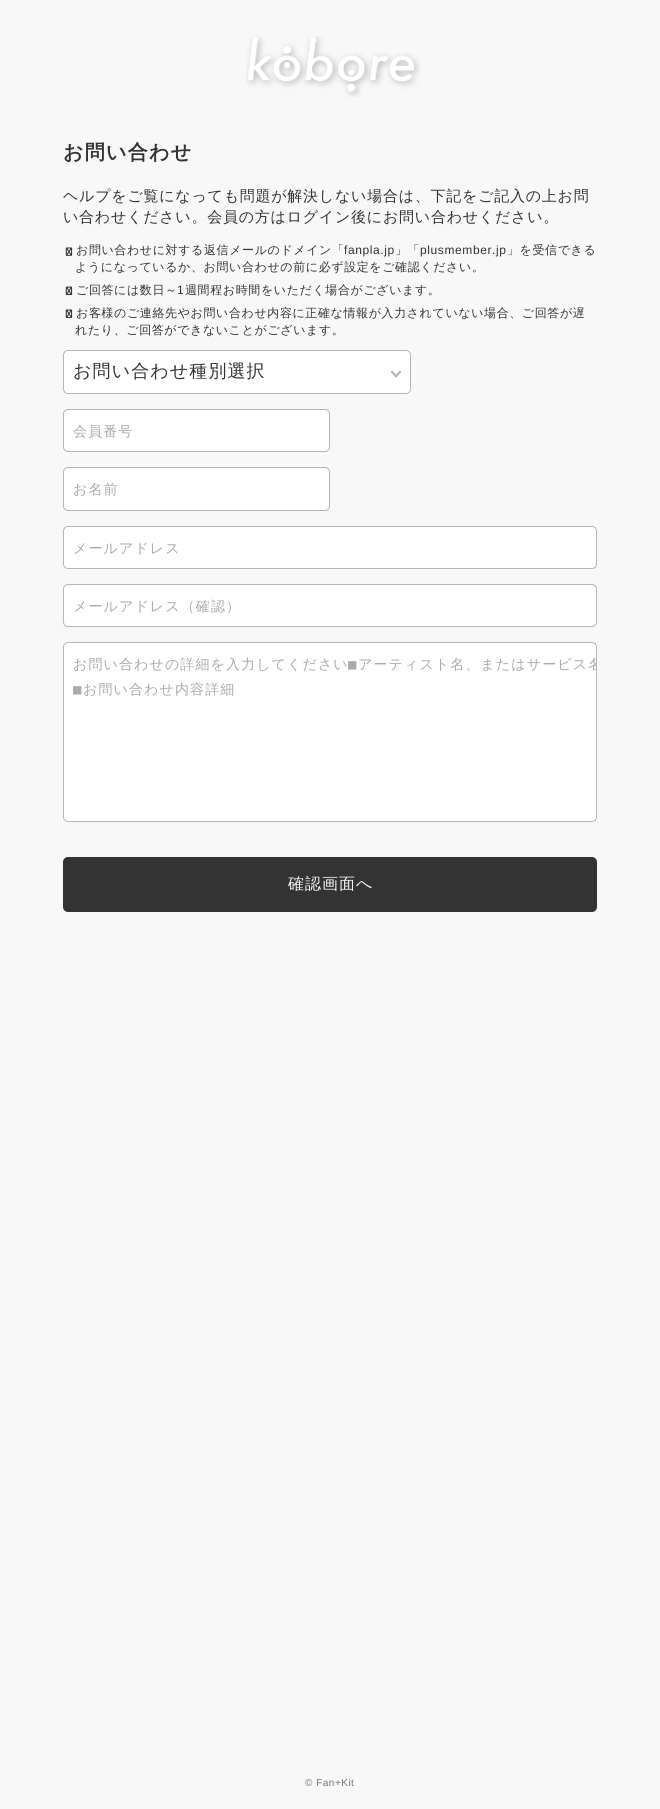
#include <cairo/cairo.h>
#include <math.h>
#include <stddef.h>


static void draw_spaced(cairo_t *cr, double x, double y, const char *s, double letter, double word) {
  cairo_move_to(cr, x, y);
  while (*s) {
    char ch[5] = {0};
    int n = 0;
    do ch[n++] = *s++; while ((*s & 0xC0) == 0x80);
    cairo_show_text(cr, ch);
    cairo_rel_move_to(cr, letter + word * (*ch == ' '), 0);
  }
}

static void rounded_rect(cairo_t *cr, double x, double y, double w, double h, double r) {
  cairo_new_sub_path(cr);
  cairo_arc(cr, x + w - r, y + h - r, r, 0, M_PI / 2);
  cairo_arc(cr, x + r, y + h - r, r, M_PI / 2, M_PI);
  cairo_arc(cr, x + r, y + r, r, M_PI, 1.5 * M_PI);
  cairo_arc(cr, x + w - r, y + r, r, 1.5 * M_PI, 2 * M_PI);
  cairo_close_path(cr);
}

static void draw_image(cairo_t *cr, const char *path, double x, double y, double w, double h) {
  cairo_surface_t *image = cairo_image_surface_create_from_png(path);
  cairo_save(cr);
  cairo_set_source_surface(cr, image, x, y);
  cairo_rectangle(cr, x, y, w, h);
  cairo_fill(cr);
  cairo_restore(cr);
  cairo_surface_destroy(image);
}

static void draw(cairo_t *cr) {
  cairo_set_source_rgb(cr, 248 / 255.0, 248 / 255.0, 248 / 255.0);
  cairo_paint(cr);
  draw_image(cr, "images/1.png", 246, 36, 174, 61);
  draw_image(cr, "images/2.png", 65, 247, 8, 9);
  draw_image(cr, "images/3.png", 65, 286, 8, 9);
  draw_image(cr, "images/4.png", 65, 309, 8, 9);
  cairo_set_source_rgb(cr, 1, 1, 1);
  rounded_rect(cr, 63.5, 350.5, 347, 43, 4.5);
  cairo_fill_preserve(cr);
  cairo_set_source_rgb(cr, 181 / 255.0, 181 / 255.0, 181 / 255.0);
  cairo_set_line_width(cr, 1);
  cairo_stroke(cr);
  cairo_new_path(cr);
  cairo_move_to(cr, 394.5, 376);
  cairo_line_to(cr, 400, 370.5);
  cairo_line_to(cr, 401.5, 372);
  cairo_line_to(cr, 396, 377.5);
  cairo_close_path(cr);
  cairo_fill(cr);
  cairo_new_path(cr);
  cairo_move_to(cr, 390.5, 372);
  cairo_line_to(cr, 392, 370.5);
  cairo_line_to(cr, 397.5, 376);
  cairo_line_to(cr, 396, 377.5);
  cairo_close_path(cr);
  cairo_fill(cr);
  cairo_set_source_rgb(cr, 1, 1, 1);
  rounded_rect(cr, 63.5, 409.5, 266, 42, 4.5);
  cairo_fill_preserve(cr);
  cairo_set_source_rgb(cr, 181 / 255.0, 181 / 255.0, 181 / 255.0);
  cairo_stroke(cr);
  cairo_set_source_rgb(cr, 1, 1, 1);
  rounded_rect(cr, 63.5, 467.5, 266, 43, 4.5);
  cairo_fill_preserve(cr);
  cairo_set_source_rgb(cr, 181 / 255.0, 181 / 255.0, 181 / 255.0);
  cairo_stroke(cr);
  cairo_set_source_rgb(cr, 1, 1, 1);
  rounded_rect(cr, 63.5, 526.5, 533, 42, 4.5);
  cairo_fill_preserve(cr);
  cairo_set_source_rgb(cr, 181 / 255.0, 181 / 255.0, 181 / 255.0);
  cairo_stroke(cr);
  cairo_set_source_rgb(cr, 1, 1, 1);
  rounded_rect(cr, 63.5, 584.5, 533, 42, 4.5);
  cairo_fill_preserve(cr);
  cairo_set_source_rgb(cr, 181 / 255.0, 181 / 255.0, 181 / 255.0);
  cairo_stroke(cr);
  cairo_set_source_rgb(cr, 1, 1, 1);
  rounded_rect(cr, 63.5, 642.5, 533, 179, 4.5);
  cairo_fill_preserve(cr);
  cairo_set_source_rgb(cr, 181 / 255.0, 181 / 255.0, 181 / 255.0);
  cairo_stroke(cr);
  cairo_set_source_rgb(cr, 51 / 255.0, 51 / 255.0, 51 / 255.0);
  rounded_rect(cr, 63, 857, 534, 55, 5);
  cairo_fill(cr);
  cairo_select_font_face(cr, "WenQuanYi Zen Hei", CAIRO_FONT_SLANT_NORMAL, CAIRO_FONT_WEIGHT_BOLD);
  cairo_set_font_size(cr, 20);
  draw_spaced(cr, 63, 159, "お問い合わせ", 1.25, 0);
  cairo_select_font_face(cr, "WenQuanYi Zen Hei Medium", CAIRO_FONT_SLANT_NORMAL, CAIRO_FONT_WEIGHT_NORMAL);
  cairo_set_font_size(cr, 15);
  draw_spaced(cr, 63, 201, "ヘルプをご覧になっても問題が解決しない場合は、下記をご記入の上お問", 0.75, 0);
  draw_spaced(cr, 63, 222, "い合わせください。会員の方はログイン後にお問い合わせください。", 0.75, 0);
  cairo_set_font_size(cr, 12);
  draw_spaced(cr, 76, 254, "お問い合わせに対する返信メールのドメイン「", 0.6, 0);
  cairo_select_font_face(cr, "Liberation Sans", CAIRO_FONT_SLANT_NORMAL, CAIRO_FONT_WEIGHT_NORMAL);
  draw_spaced(cr, 344, 254, "fanpla.jp", 0.6, 0);
  cairo_select_font_face(cr, "WenQuanYi Zen Hei Medium", CAIRO_FONT_SLANT_NORMAL, CAIRO_FONT_WEIGHT_NORMAL);
  draw_spaced(cr, 395, 254, "」「", 0.6, 0);
  cairo_select_font_face(cr, "Liberation Sans", CAIRO_FONT_SLANT_NORMAL, CAIRO_FONT_WEIGHT_NORMAL);
  draw_spaced(cr, 420, 254, "plusmember.jp", 0.6, 0);
  cairo_select_font_face(cr, "WenQuanYi Zen Hei Medium", CAIRO_FONT_SLANT_NORMAL, CAIRO_FONT_WEIGHT_NORMAL);
  draw_spaced(cr, 507, 254, "」を受信できる", 0.6, 0);
  draw_spaced(cr, 75, 271, "ようになっているか、お問い合わせの前に必ず設定をご確認ください。", 0.6, 0);
  draw_spaced(cr, 76, 294, "ご回答には数日～", 0.6, 0);
  cairo_select_font_face(cr, "Liberation Sans", CAIRO_FONT_SLANT_NORMAL, CAIRO_FONT_WEIGHT_NORMAL);
  draw_spaced(cr, 177, 294, "1", 0.6, 0);
  cairo_select_font_face(cr, "WenQuanYi Zen Hei Medium", CAIRO_FONT_SLANT_NORMAL, CAIRO_FONT_WEIGHT_NORMAL);
  draw_spaced(cr, 185, 294, "週間程お時間をいただく場合がございます。", 0.6, 0);
  draw_spaced(cr, 76, 317, "お客様のご連絡先やお問い合わせ内容に正確な情報が入力されていない場合、ご回答が遅", 0.6, 0);
  draw_spaced(cr, 75, 334, "れたり、ご回答ができないことがございます。", 0.6, 0);
  cairo_set_font_size(cr, 18);
  draw_spaced(cr, 73, 377, "お問い合わせ種別選択", 1.1, 0);
  cairo_set_font_size(cr, 14);
  cairo_set_source_rgb(cr, 170 / 255.0, 170 / 255.0, 170 / 255.0);
  draw_spaced(cr, 73, 436, "会員番号", 1.1, 0);
  draw_spaced(cr, 73, 494, "お名前", 1.1, 0);
  draw_spaced(cr, 73, 553, "メールアドレス", 1.1, 0);
  draw_spaced(cr, 73, 611, "メールアドレス（確認）", 1.1, 0);
  draw_spaced(cr, 73, 669, "お問い合わせの詳細を入力してください", 1.1, 0);
  cairo_select_font_face(cr, "DejaVu Sans Mono", CAIRO_FONT_SLANT_NORMAL, CAIRO_FONT_WEIGHT_NORMAL);
  draw_spaced(cr, 348, 669, "■", 1.1, 0);
  cairo_save(cr);
  rounded_rect(cr, 64, 643, 532, 178, 4);
  cairo_clip(cr);
  cairo_select_font_face(cr, "WenQuanYi Zen Hei Medium", CAIRO_FONT_SLANT_NORMAL, CAIRO_FONT_WEIGHT_NORMAL);
  draw_spaced(cr, 358, 669, "アーティスト名、またはサービス名", 1.1, 0);
  cairo_restore(cr);
  draw_spaced(cr, 73, 694, "■", 1.1, 0);
  cairo_select_font_face(cr, "WenQuanYi Zen Hei Medium", CAIRO_FONT_SLANT_NORMAL, CAIRO_FONT_WEIGHT_NORMAL);
  draw_spaced(cr, 83, 694, "お問い合わせ内容詳細", 1.1, 0);
  cairo_set_font_size(cr, 16);
  cairo_set_source_rgb(cr, 248 / 255.0, 248 / 255.0, 248 / 255.0);
  draw_spaced(cr, 288, 889, "確認画面へ", 1, 0);
  cairo_select_font_face(cr, "Liberation Sans", CAIRO_FONT_SLANT_NORMAL, CAIRO_FONT_WEIGHT_NORMAL);
  cairo_set_font_size(cr, 10);
  cairo_set_source_rgb(cr, 117 / 255.0, 117 / 255.0, 117 / 255.0);
  draw_spaced(cr, 305, 1786, "© Fan+Kit", 0.5, 0);
}

int main(void) {
  cairo_surface_t *surface = cairo_image_surface_create(CAIRO_FORMAT_RGB24, 660, 1809);
  cairo_t *cr = cairo_create(surface);
  cairo_font_options_t *options = cairo_font_options_create();
  cairo_font_options_set_hint_metrics(options, CAIRO_HINT_METRICS_OFF);
  cairo_font_options_set_hint_style(options, CAIRO_HINT_STYLE_NONE);
  cairo_set_font_options(cr, options);
  cairo_set_miter_limit(cr, 4);
  draw(cr);
  cairo_surface_write_to_png(surface, "out.png");
  cairo_font_options_destroy(options);
  cairo_destroy(cr);
  cairo_surface_destroy(surface);
  return 0;
}
